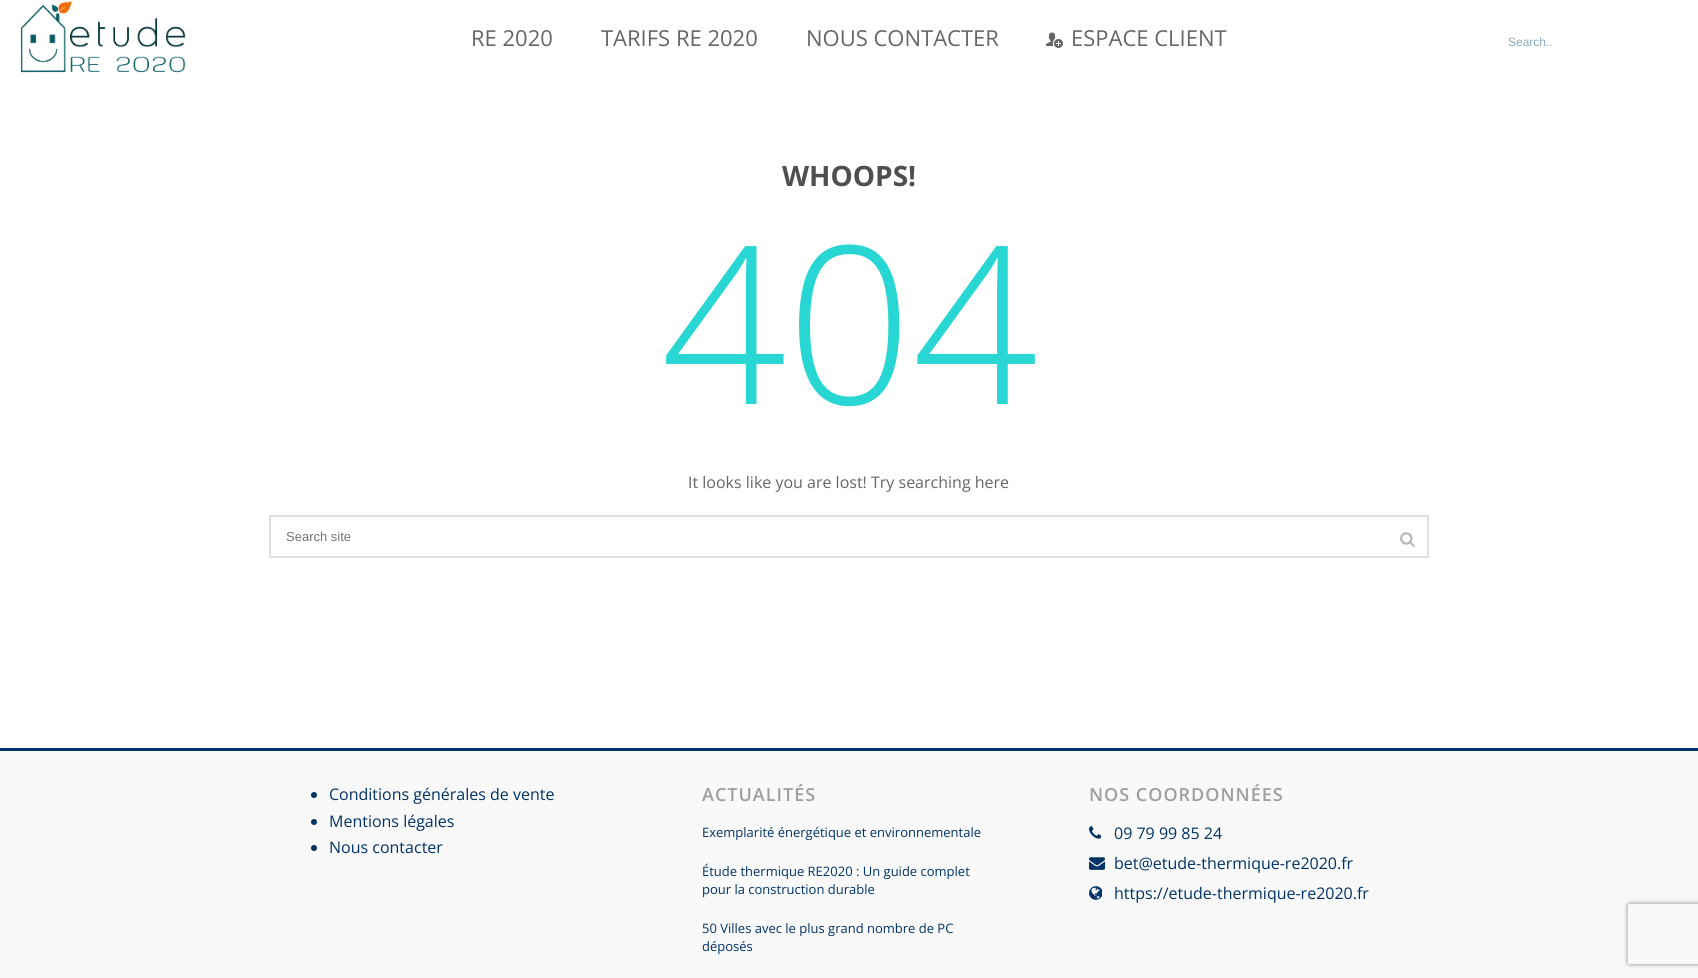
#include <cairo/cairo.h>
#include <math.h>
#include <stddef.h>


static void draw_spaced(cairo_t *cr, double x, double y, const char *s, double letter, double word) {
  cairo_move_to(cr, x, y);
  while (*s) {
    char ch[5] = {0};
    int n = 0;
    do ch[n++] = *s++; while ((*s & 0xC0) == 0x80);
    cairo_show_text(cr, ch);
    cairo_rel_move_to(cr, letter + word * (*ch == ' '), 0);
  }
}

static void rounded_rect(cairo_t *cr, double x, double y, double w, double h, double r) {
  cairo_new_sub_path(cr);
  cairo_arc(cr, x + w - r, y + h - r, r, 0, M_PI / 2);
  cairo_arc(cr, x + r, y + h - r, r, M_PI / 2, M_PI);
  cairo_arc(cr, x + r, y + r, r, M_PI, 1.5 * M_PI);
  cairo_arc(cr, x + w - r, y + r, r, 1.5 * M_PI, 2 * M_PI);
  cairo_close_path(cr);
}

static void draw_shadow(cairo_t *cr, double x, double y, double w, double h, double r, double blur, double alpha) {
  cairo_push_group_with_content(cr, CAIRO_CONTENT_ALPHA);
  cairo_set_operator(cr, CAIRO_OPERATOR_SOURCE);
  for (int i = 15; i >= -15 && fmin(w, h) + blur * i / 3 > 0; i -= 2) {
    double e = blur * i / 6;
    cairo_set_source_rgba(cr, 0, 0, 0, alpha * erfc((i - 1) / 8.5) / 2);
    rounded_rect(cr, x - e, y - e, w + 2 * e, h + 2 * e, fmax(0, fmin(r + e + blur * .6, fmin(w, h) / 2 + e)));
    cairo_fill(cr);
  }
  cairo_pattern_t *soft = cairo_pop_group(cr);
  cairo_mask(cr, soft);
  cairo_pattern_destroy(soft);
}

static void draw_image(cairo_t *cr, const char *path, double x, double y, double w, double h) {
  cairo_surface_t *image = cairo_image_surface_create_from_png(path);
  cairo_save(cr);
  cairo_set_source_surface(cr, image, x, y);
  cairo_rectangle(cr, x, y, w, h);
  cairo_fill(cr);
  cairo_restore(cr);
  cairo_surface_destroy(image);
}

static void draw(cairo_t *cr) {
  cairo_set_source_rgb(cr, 249 / 255.0, 249 / 255.0, 249 / 255.0);
  cairo_paint(cr);
  cairo_set_source_rgb(cr, 1, 1, 1);
  cairo_rectangle(cr, 0, 0, 1698, 748);
  cairo_fill(cr);
  draw_image(cr, "images/1.png", 20, 1, 166, 72);
  draw_image(cr, "images/2.png", 1046, 32, 17, 16);
  cairo_rectangle(cr, 270, 516, 1158, 41);
  cairo_set_source_rgb(cr, 223 / 255.0, 223 / 255.0, 223 / 255.0);
  cairo_stroke(cr);
  draw_image(cr, "images/3.png", 1400, 532, 15, 15);
  cairo_set_source_rgb(cr, 0, 51 / 255.0, 102 / 255.0);
  cairo_rectangle(cr, 0, 748, 1698, 3);
  cairo_fill(cr);
  cairo_arc(cr, 314, 795, 3, 0, 2 * M_PI);
  cairo_fill(cr);
  cairo_arc(cr, 314, 822, 3, 0, 2 * M_PI);
  cairo_fill(cr);
  cairo_arc(cr, 314, 848, 3, 0, 2 * M_PI);
  cairo_fill(cr);
  draw_image(cr, "images/4.png", 1089, 826, 12, 13);
  draw_image(cr, "images/5.png", 1089, 857, 16, 13);
  draw_image(cr, "images/6.png", 1089, 886, 13, 14);
  cairo_save(cr);
  cairo_set_fill_rule(cr, CAIRO_FILL_RULE_EVEN_ODD);
  cairo_new_path(cr);
  cairo_move_to(cr, 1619, 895);
  cairo_line_to(cr, 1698, 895);
  cairo_line_to(cr, 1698, 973);
  cairo_line_to(cr, 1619, 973);
  cairo_close_path(cr);
  cairo_move_to(cr, 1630, 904);
  cairo_line_to(cr, 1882, 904);
  cairo_curve_to(cr, 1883, 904, 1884, 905, 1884, 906);
  cairo_line_to(cr, 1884, 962);
  cairo_curve_to(cr, 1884, 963, 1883, 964, 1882, 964);
  cairo_line_to(cr, 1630, 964);
  cairo_curve_to(cr, 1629, 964, 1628, 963, 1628, 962);
  cairo_line_to(cr, 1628, 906);
  cairo_curve_to(cr, 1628, 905, 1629, 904, 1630, 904);
  cairo_close_path(cr);
  cairo_clip(cr);
  cairo_set_source_rgb(cr, 128 / 255.0, 128 / 255.0, 128 / 255.0);
  draw_shadow(cr, 1628, 904, 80, 60, 2, 2.5, 1);
  cairo_restore(cr);
  cairo_select_font_face(cr, "Open Sans", CAIRO_FONT_SLANT_NORMAL, CAIRO_FONT_WEIGHT_NORMAL);
  cairo_set_font_size(cr, 22);
  cairo_set_source_rgb(cr, 102 / 255.0, 102 / 255.0, 102 / 255.0);
  cairo_move_to(cr, 471, 46);
  cairo_show_text(cr, "RE 2020");
  cairo_move_to(cr, 601, 46);
  cairo_show_text(cr, "TARIFS RE 2020");
  cairo_move_to(cr, 806, 46);
  cairo_show_text(cr, "NOUS CONTACTER");
  cairo_move_to(cr, 1071, 46);
  cairo_show_text(cr, "ESPACE CLIENT");
  cairo_select_font_face(cr, "Liberation Sans", CAIRO_FONT_SLANT_NORMAL, CAIRO_FONT_WEIGHT_NORMAL);
  cairo_set_font_size(cr, 12);
  cairo_set_source_rgb(cr, 139 / 255.0, 168 / 255.0, 189 / 255.0);
  cairo_move_to(cr, 1508, 46);
  cairo_show_text(cr, "Search..");
  cairo_select_font_face(cr, "Open Sans", CAIRO_FONT_SLANT_NORMAL, CAIRO_FONT_WEIGHT_BOLD);
  cairo_set_font_size(cr, 28);
  cairo_set_source_rgb(cr, 79 / 255.0, 79 / 255.0, 79 / 255.0);
  cairo_move_to(cr, 782, 186);
  cairo_show_text(cr, "WHOOPS!");
  cairo_select_font_face(cr, "Open Sans Light", CAIRO_FONT_SLANT_NORMAL, CAIRO_FONT_WEIGHT_NORMAL);
  cairo_set_font_size(cr, 220);
  cairo_set_source_rgb(cr, 40 / 255.0, 214 / 255.0, 211 / 255.0);
  cairo_move_to(cr, 661, 404);
  cairo_show_text(cr, "404");
  cairo_select_font_face(cr, "Open Sans", CAIRO_FONT_SLANT_NORMAL, CAIRO_FONT_WEIGHT_NORMAL);
  cairo_set_font_size(cr, 16);
  cairo_set_source_rgb(cr, 102 / 255.0, 102 / 255.0, 102 / 255.0);
  cairo_move_to(cr, 688, 488);
  cairo_show_text(cr, "It looks like you are lost! Try searching here");
  cairo_select_font_face(cr, "Liberation Sans", CAIRO_FONT_SLANT_NORMAL, CAIRO_FONT_WEIGHT_NORMAL);
  cairo_set_font_size(cr, 13);
  cairo_set_source_rgb(cr, 117 / 255.0, 117 / 255.0, 117 / 255.0);
  cairo_move_to(cr, 286, 541);
  cairo_show_text(cr, "Search site");
  cairo_select_font_face(cr, "Open Sans", CAIRO_FONT_SLANT_NORMAL, CAIRO_FONT_WEIGHT_NORMAL);
  cairo_set_font_size(cr, 16);
  cairo_set_source_rgb(cr, 0, 51 / 255.0, 102 / 255.0);
  cairo_move_to(cr, 329, 800);
  cairo_show_text(cr, "Conditions générales de vente");
  cairo_move_to(cr, 329, 827);
  cairo_show_text(cr, "Mentions légales");
  cairo_move_to(cr, 329, 853);
  cairo_show_text(cr, "Nous contacter");
  cairo_select_font_face(cr, "Open Sans SemiBold", CAIRO_FONT_SLANT_NORMAL, CAIRO_FONT_WEIGHT_NORMAL);
  cairo_set_font_size(cr, 18);
  cairo_set_source_rgb(cr, 158 / 255.0, 158 / 255.0, 158 / 255.0);
  draw_spaced(cr, 702, 801, "ACTUALITÉS", 1, 0);
  cairo_select_font_face(cr, "Open Sans", CAIRO_FONT_SLANT_NORMAL, CAIRO_FONT_WEIGHT_NORMAL);
  cairo_set_font_size(cr, 13);
  cairo_set_source_rgb(cr, 0, 51 / 255.0, 102 / 255.0);
  cairo_move_to(cr, 702, 837);
  cairo_show_text(cr, "Exemplarité énergétique et environnementale");
  cairo_move_to(cr, 702, 876);
  cairo_show_text(cr, "Étude thermique RE2020 : Un guide complet");
  cairo_move_to(cr, 702, 894);
  cairo_show_text(cr, "pour la construction durable");
  cairo_move_to(cr, 702, 933);
  cairo_show_text(cr, "50 Villes avec le plus grand nombre de PC");
  cairo_move_to(cr, 702, 951);
  cairo_show_text(cr, "déposés");
  cairo_select_font_face(cr, "Open Sans SemiBold", CAIRO_FONT_SLANT_NORMAL, CAIRO_FONT_WEIGHT_NORMAL);
  cairo_set_font_size(cr, 18);
  cairo_set_source_rgb(cr, 158 / 255.0, 158 / 255.0, 158 / 255.0);
  draw_spaced(cr, 1089, 801, "NOS COORDONNÉES", 1, 0);
  cairo_select_font_face(cr, "Open Sans", CAIRO_FONT_SLANT_NORMAL, CAIRO_FONT_WEIGHT_NORMAL);
  cairo_set_font_size(cr, 16);
  cairo_set_source_rgb(cr, 0, 51 / 255.0, 102 / 255.0);
  cairo_move_to(cr, 1114, 839);
  cairo_show_text(cr, "09 79 99 85 24");
  cairo_move_to(cr, 1114, 869);
  cairo_show_text(cr, "bet@etude-thermique-re2020.fr");
  cairo_move_to(cr, 1114, 899);
  cairo_show_text(cr, "https://etude-thermique-re2020.fr");
}

int main(void) {
  cairo_surface_t *surface = cairo_image_surface_create(CAIRO_FORMAT_RGB24, 1698, 978);
  cairo_t *cr = cairo_create(surface);
  cairo_font_options_t *options = cairo_font_options_create();
  cairo_font_options_set_hint_metrics(options, CAIRO_HINT_METRICS_OFF);
  cairo_font_options_set_hint_style(options, CAIRO_HINT_STYLE_NONE);
  cairo_set_font_options(cr, options);
  cairo_set_miter_limit(cr, 4);
  draw(cr);
  cairo_surface_write_to_png(surface, "out.png");
  cairo_font_options_destroy(options);
  cairo_destroy(cr);
  cairo_surface_destroy(surface);
  return 0;
}
